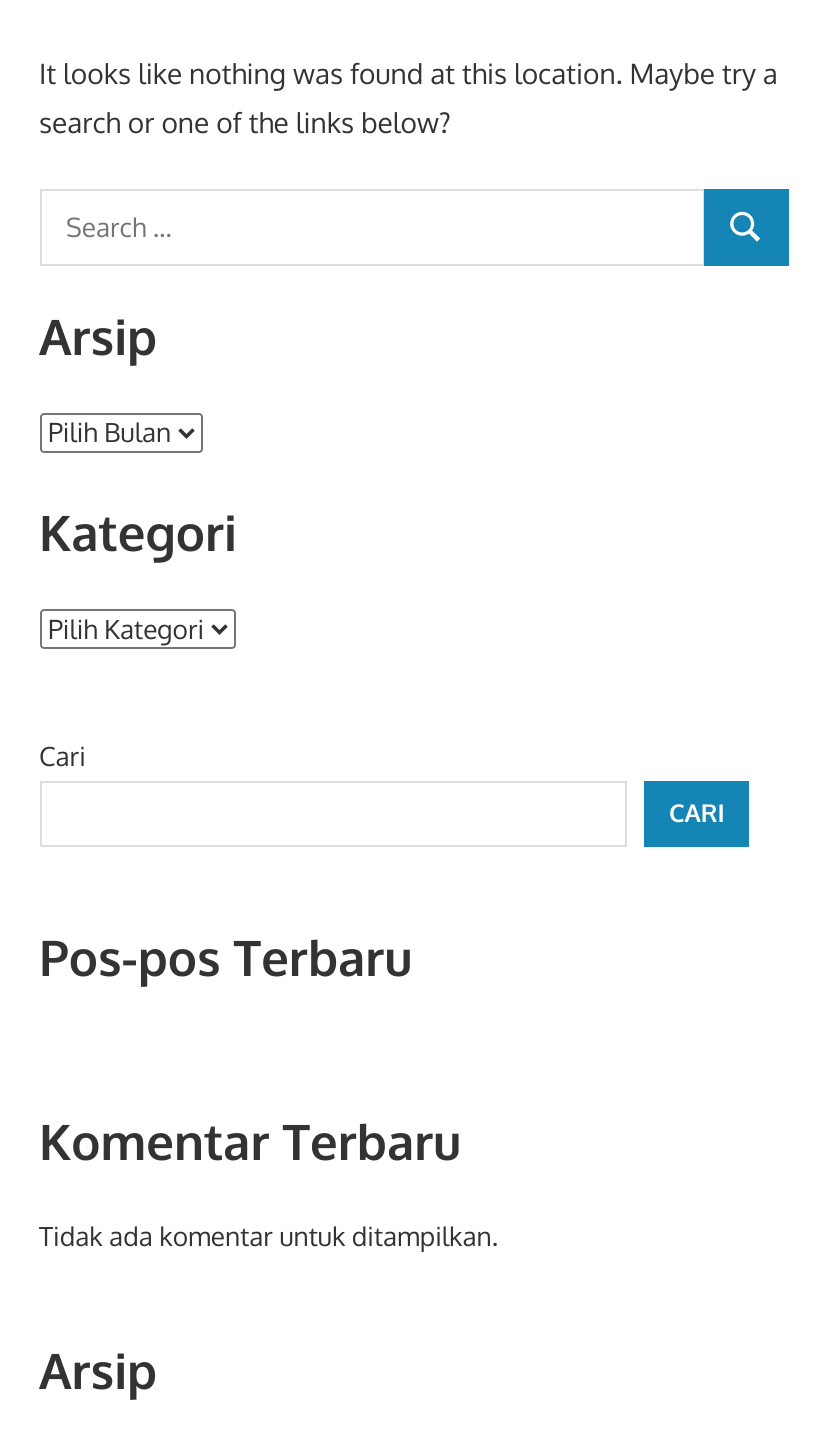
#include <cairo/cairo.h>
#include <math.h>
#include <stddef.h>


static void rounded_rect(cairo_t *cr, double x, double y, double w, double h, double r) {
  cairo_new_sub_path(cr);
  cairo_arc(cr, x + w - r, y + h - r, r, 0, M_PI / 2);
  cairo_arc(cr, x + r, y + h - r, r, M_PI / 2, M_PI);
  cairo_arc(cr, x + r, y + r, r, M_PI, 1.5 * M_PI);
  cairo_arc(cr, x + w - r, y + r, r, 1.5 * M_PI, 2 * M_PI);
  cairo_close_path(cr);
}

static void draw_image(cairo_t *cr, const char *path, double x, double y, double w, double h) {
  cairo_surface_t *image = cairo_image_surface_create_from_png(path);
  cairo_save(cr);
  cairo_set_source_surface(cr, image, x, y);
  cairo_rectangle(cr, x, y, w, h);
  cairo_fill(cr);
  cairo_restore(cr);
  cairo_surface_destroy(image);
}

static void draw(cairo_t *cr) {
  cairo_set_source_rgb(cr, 1, 1, 1);
  cairo_paint(cr);
  cairo_rectangle(cr, 41, 190, 663, 75);
  cairo_set_source_rgb(cr, 221 / 255.0, 221 / 255.0, 221 / 255.0);
  cairo_stroke(cr);
  cairo_set_source_rgb(cr, 21 / 255.0, 133 / 255.0, 181 / 255.0);
  cairo_rectangle(cr, 704, 189, 85, 77);
  cairo_fill(cr);
  draw_image(cr, "images/1.png", 730, 211, 30, 31);
  rounded_rect(cr, 41, 414, 161, 38, 3);
  cairo_set_source_rgb(cr, 118 / 255.0, 118 / 255.0, 118 / 255.0);
  cairo_stroke(cr);
  cairo_new_path(cr);
  cairo_move_to(cr, 179.5, 429.5);
  cairo_line_to(cr, 186.5, 436.5);
  cairo_line_to(cr, 193.5, 429.5);
  cairo_set_source_rgb(cr, 51 / 255.0, 51 / 255.0, 51 / 255.0);
  cairo_set_line_width(cr, 3.5);
  cairo_stroke(cr);
  rounded_rect(cr, 41, 610, 194, 38, 3);
  cairo_set_source_rgb(cr, 118 / 255.0, 118 / 255.0, 118 / 255.0);
  cairo_set_line_width(cr, 2);
  cairo_stroke(cr);
  cairo_new_path(cr);
  cairo_move_to(cr, 212.5, 625.5);
  cairo_line_to(cr, 219.5, 632.5);
  cairo_line_to(cr, 226.5, 625.5);
  cairo_set_source_rgb(cr, 51 / 255.0, 51 / 255.0, 51 / 255.0);
  cairo_set_line_width(cr, 3.5);
  cairo_stroke(cr);
  cairo_rectangle(cr, 41, 782, 585, 64);
  cairo_set_source_rgb(cr, 221 / 255.0, 221 / 255.0, 221 / 255.0);
  cairo_set_line_width(cr, 2);
  cairo_stroke(cr);
  cairo_set_source_rgb(cr, 21 / 255.0, 133 / 255.0, 181 / 255.0);
  cairo_rectangle(cr, 644, 781, 105, 66);
  cairo_fill(cr);
  cairo_select_font_face(cr, "Oxygen", CAIRO_FONT_SLANT_NORMAL, CAIRO_FONT_WEIGHT_NORMAL);
  cairo_set_font_size(cr, 28);
  cairo_set_source_rgb(cr, 51 / 255.0, 51 / 255.0, 51 / 255.0);
  cairo_move_to(cr, 39, 84);
  cairo_show_text(cr, "It looks like nothing was found at this location. Maybe try a");
  cairo_move_to(cr, 39, 133);
  cairo_show_text(cr, "search or one of the links below?");
  cairo_set_font_size(cr, 26.25);
  cairo_set_source_rgb(cr, 117 / 255.0, 117 / 255.0, 117 / 255.0);
  cairo_move_to(cr, 66, 237);
  cairo_show_text(cr, "Search …");
  cairo_select_font_face(cr, "Oxygen", CAIRO_FONT_SLANT_NORMAL, CAIRO_FONT_WEIGHT_BOLD);
  cairo_set_font_size(cr, 49);
  cairo_set_source_rgb(cr, 51 / 255.0, 51 / 255.0, 51 / 255.0);
  cairo_move_to(cr, 39, 355);
  cairo_show_text(cr, "Arsip");
  cairo_select_font_face(cr, "Oxygen", CAIRO_FONT_SLANT_NORMAL, CAIRO_FONT_WEIGHT_NORMAL);
  cairo_set_font_size(cr, 26.25);
  cairo_move_to(cr, 48, 442);
  cairo_show_text(cr, "Pilih Bulan");
  cairo_select_font_face(cr, "Oxygen", CAIRO_FONT_SLANT_NORMAL, CAIRO_FONT_WEIGHT_BOLD);
  cairo_set_font_size(cr, 49);
  cairo_move_to(cr, 39, 551);
  cairo_show_text(cr, "Kategori");
  cairo_select_font_face(cr, "Oxygen", CAIRO_FONT_SLANT_NORMAL, CAIRO_FONT_WEIGHT_NORMAL);
  cairo_set_font_size(cr, 26.25);
  cairo_move_to(cr, 48, 639);
  cairo_show_text(cr, "Pilih Kategori");
  cairo_move_to(cr, 39, 766);
  cairo_show_text(cr, "Cari");
  cairo_select_font_face(cr, "Oxygen", CAIRO_FONT_SLANT_NORMAL, CAIRO_FONT_WEIGHT_BOLD);
  cairo_set_font_size(cr, 24.5);
  cairo_set_source_rgb(cr, 1, 1, 1);
  cairo_move_to(cr, 669, 822);
  cairo_show_text(cr, "CARI");
  cairo_set_font_size(cr, 49);
  cairo_set_source_rgb(cr, 51 / 255.0, 51 / 255.0, 51 / 255.0);
  cairo_move_to(cr, 39, 976);
  cairo_show_text(cr, "Pos-pos Terbaru");
  cairo_move_to(cr, 39, 1160);
  cairo_show_text(cr, "Komentar Terbaru");
  cairo_select_font_face(cr, "Oxygen", CAIRO_FONT_SLANT_NORMAL, CAIRO_FONT_WEIGHT_NORMAL);
  cairo_set_font_size(cr, 26.25);
  cairo_move_to(cr, 39, 1246);
  cairo_show_text(cr, "Tidak ada komentar untuk ditampilkan.");
  cairo_select_font_face(cr, "Oxygen", CAIRO_FONT_SLANT_NORMAL, CAIRO_FONT_WEIGHT_BOLD);
  cairo_set_font_size(cr, 49);
  cairo_move_to(cr, 39, 1389);
  cairo_show_text(cr, "Arsip");
}

int main(void) {
  cairo_surface_t *surface = cairo_image_surface_create(CAIRO_FORMAT_RGB24, 827, 1452);
  cairo_t *cr = cairo_create(surface);
  cairo_font_options_t *options = cairo_font_options_create();
  cairo_font_options_set_hint_metrics(options, CAIRO_HINT_METRICS_OFF);
  cairo_font_options_set_hint_style(options, CAIRO_HINT_STYLE_NONE);
  cairo_set_font_options(cr, options);
  cairo_set_miter_limit(cr, 4);
  draw(cr);
  cairo_surface_write_to_png(surface, "out.png");
  cairo_font_options_destroy(options);
  cairo_destroy(cr);
  cairo_surface_destroy(surface);
  return 0;
}
